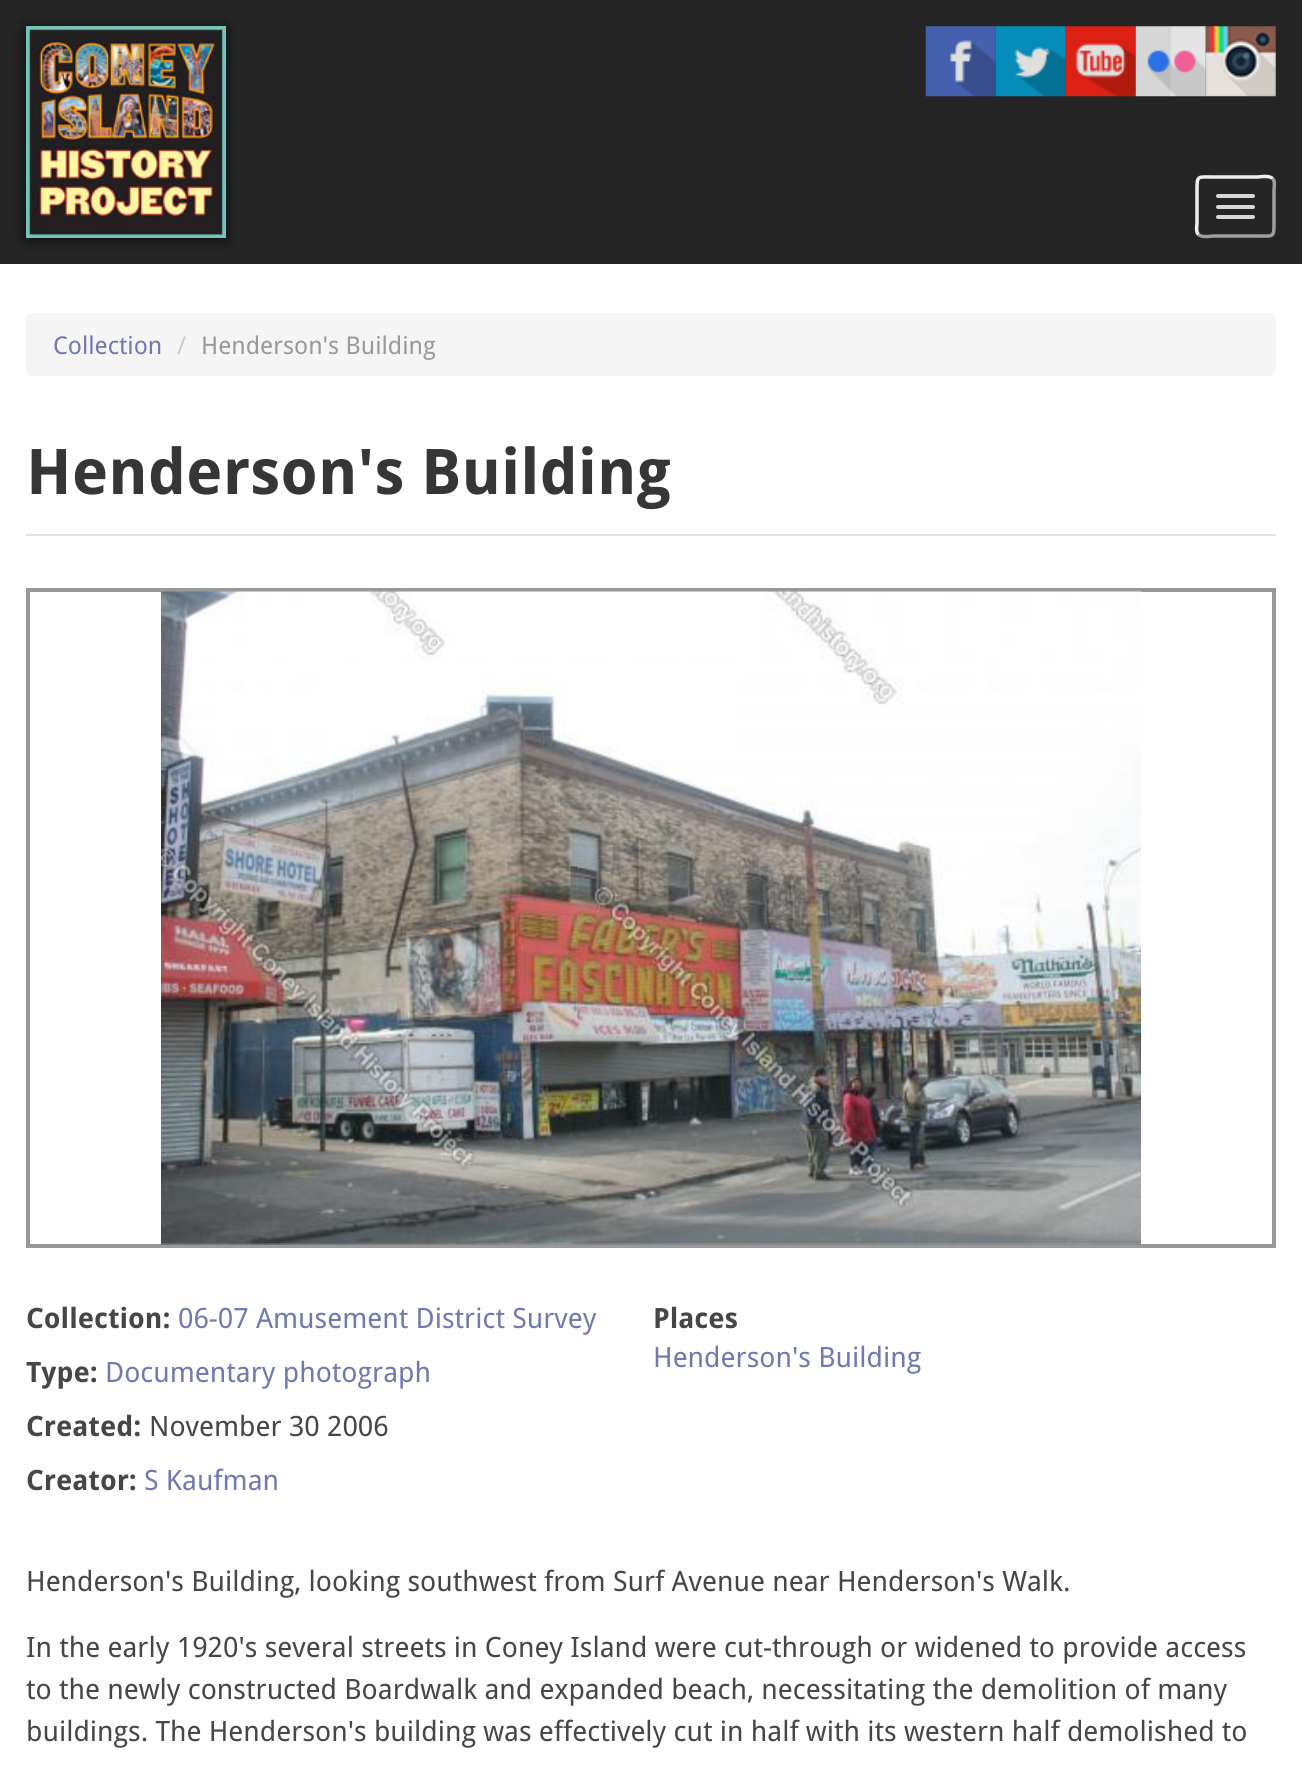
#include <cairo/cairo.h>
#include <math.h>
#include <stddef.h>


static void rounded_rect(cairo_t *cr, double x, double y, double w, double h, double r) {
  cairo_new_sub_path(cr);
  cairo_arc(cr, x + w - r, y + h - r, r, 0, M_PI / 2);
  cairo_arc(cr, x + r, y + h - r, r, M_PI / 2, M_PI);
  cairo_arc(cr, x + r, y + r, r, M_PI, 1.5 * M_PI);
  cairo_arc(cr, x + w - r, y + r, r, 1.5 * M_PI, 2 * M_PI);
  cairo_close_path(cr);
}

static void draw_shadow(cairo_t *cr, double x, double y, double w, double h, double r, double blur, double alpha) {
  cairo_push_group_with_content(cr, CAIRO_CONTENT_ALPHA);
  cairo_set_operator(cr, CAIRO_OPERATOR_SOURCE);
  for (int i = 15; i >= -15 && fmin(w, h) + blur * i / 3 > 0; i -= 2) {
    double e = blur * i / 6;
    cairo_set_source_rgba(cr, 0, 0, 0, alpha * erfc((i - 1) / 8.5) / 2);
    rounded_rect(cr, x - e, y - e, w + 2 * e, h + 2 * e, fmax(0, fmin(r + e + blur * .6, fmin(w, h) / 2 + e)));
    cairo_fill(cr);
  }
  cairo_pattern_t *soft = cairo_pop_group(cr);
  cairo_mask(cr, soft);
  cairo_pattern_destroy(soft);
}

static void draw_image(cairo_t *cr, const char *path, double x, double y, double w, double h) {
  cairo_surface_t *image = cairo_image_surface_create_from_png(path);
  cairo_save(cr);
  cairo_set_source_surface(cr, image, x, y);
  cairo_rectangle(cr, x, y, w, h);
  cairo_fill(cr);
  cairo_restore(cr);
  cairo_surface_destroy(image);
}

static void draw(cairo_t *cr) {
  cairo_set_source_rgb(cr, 1, 1, 1);
  cairo_paint(cr);
  cairo_set_source_rgb(cr, 37 / 255.0, 37 / 255.0, 37 / 255.0);
  cairo_rectangle(cr, 0, 0, 1302, 264);
  cairo_fill(cr);
  cairo_set_source_rgb(cr, 0, 0, 0);
  draw_shadow(cr, 26, 28, 200, 212, 0, 7, 0.66);
  cairo_rectangle(cr, 28, 28, 196, 208);
  cairo_set_source_rgb(cr, 116 / 255.0, 195 / 255.0, 189 / 255.0);
  cairo_set_line_width(cr, 4);
  cairo_stroke(cr);
  draw_image(cr, "images/1.png", 29, 29, 194, 206);
  draw_image(cr, "images/2.png", 925, 26, 71, 71);
  draw_image(cr, "images/3.png", 995, 26, 71, 71);
  draw_image(cr, "images/4.png", 1065, 26, 71, 71);
  draw_image(cr, "images/5.png", 1135, 26, 71, 71);
  draw_image(cr, "images/6.png", 1205, 26, 71, 71);
  cairo_new_path(cr);
  cairo_move_to(cr, 1272.5, 178.5);
  cairo_curve_to(cr, 1275.5, 181, 1274, 187.5, 1274, 190);
  cairo_line_to(cr, 1274, 223);
  cairo_curve_to(cr, 1274, 238, 1273.5, 236, 1257.5, 236);
  cairo_line_to(cr, 1213.5, 236);
  cairo_curve_to(cr, 1211.5, 236, 1202, 238, 1198.5, 234.5);
  cairo_set_source_rgb(cr, 159 / 255.0, 159 / 255.0, 159 / 255.0);
  cairo_set_line_width(cr, 3.5);
  cairo_stroke(cr);
  cairo_new_path(cr);
  cairo_move_to(cr, 1198.5, 234.5);
  cairo_curve_to(cr, 1195.5, 232, 1197, 225.5, 1197, 223);
  cairo_line_to(cr, 1197, 190);
  cairo_curve_to(cr, 1197, 175, 1197.5, 177, 1213.5, 177);
  cairo_line_to(cr, 1257.5, 177);
  cairo_curve_to(cr, 1259.5, 177, 1269, 175, 1272.5, 178.5);
  cairo_set_source_rgb(cr, 239 / 255.0, 239 / 255.0, 239 / 255.0);
  cairo_stroke(cr);
  cairo_set_source_rgb(cr, 215 / 255.0, 215 / 255.0, 215 / 255.0);
  rounded_rect(cr, 1216, 194, 39, 4, 2);
  cairo_fill(cr);
  rounded_rect(cr, 1216, 205, 39, 4, 2);
  cairo_fill(cr);
  rounded_rect(cr, 1216, 215, 39, 4, 2);
  cairo_fill(cr);
  cairo_set_source_rgb(cr, 245 / 255.0, 245 / 255.0, 245 / 255.0);
  rounded_rect(cr, 26, 313, 1250, 63, 7);
  cairo_fill(cr);
  cairo_set_source_rgb(cr, 225 / 255.0, 225 / 255.0, 225 / 255.0);
  cairo_rectangle(cr, 26, 534, 1250, 2);
  cairo_fill(cr);
  cairo_rectangle(cr, 28, 590, 1246, 656);
  cairo_set_source_rgb(cr, 153 / 255.0, 153 / 255.0, 153 / 255.0);
  cairo_set_line_width(cr, 4);
  cairo_stroke(cr);
  draw_image(cr, "images/7.png", 161, 591, 980, 654);
  cairo_select_font_face(cr, "Droid Sans", CAIRO_FONT_SLANT_NORMAL, CAIRO_FONT_WEIGHT_NORMAL);
  cairo_set_font_size(cr, 24.5);
  cairo_set_source_rgb(cr, 112 / 255.0, 121 / 255.0, 176 / 255.0);
  cairo_move_to(cr, 53, 354);
  cairo_show_text(cr, "Collection");
  cairo_set_source_rgb(cr, 204 / 255.0, 204 / 255.0, 204 / 255.0);
  cairo_move_to(cr, 177, 354);
  cairo_show_text(cr, "/");
  cairo_set_source_rgb(cr, 153 / 255.0, 153 / 255.0, 153 / 255.0);
  cairo_move_to(cr, 201, 354);
  cairo_show_text(cr, "Henderson's Building");
  cairo_select_font_face(cr, "Droid Sans", CAIRO_FONT_SLANT_NORMAL, CAIRO_FONT_WEIGHT_BOLD);
  cairo_set_font_size(cr, 63);
  cairo_set_source_rgb(cr, 54 / 255.0, 54 / 255.0, 54 / 255.0);
  cairo_move_to(cr, 26, 494);
  cairo_show_text(cr, "Henderson's Building");
  cairo_set_font_size(cr, 28);
  cairo_set_source_rgb(cr, 70 / 255.0, 70 / 255.0, 70 / 255.0);
  cairo_move_to(cr, 26, 1328);
  cairo_show_text(cr, "Collection:");
  cairo_select_font_face(cr, "Droid Sans", CAIRO_FONT_SLANT_NORMAL, CAIRO_FONT_WEIGHT_NORMAL);
  cairo_set_source_rgb(cr, 112 / 255.0, 121 / 255.0, 176 / 255.0);
  cairo_move_to(cr, 178, 1328);
  cairo_show_text(cr, "06-07 Amusement District Survey");
  cairo_select_font_face(cr, "Droid Sans", CAIRO_FONT_SLANT_NORMAL, CAIRO_FONT_WEIGHT_BOLD);
  cairo_set_source_rgb(cr, 70 / 255.0, 70 / 255.0, 70 / 255.0);
  cairo_move_to(cr, 26, 1382);
  cairo_show_text(cr, "Type:");
  cairo_select_font_face(cr, "Droid Sans", CAIRO_FONT_SLANT_NORMAL, CAIRO_FONT_WEIGHT_NORMAL);
  cairo_set_source_rgb(cr, 112 / 255.0, 121 / 255.0, 176 / 255.0);
  cairo_move_to(cr, 105, 1382);
  cairo_show_text(cr, "Documentary photograph");
  cairo_select_font_face(cr, "Droid Sans", CAIRO_FONT_SLANT_NORMAL, CAIRO_FONT_WEIGHT_BOLD);
  cairo_set_source_rgb(cr, 70 / 255.0, 70 / 255.0, 70 / 255.0);
  cairo_move_to(cr, 26, 1436);
  cairo_show_text(cr, "Created:");
  cairo_select_font_face(cr, "Droid Sans", CAIRO_FONT_SLANT_NORMAL, CAIRO_FONT_WEIGHT_NORMAL);
  cairo_move_to(cr, 149, 1436);
  cairo_show_text(cr, "November 30 2006");
  cairo_select_font_face(cr, "Droid Sans", CAIRO_FONT_SLANT_NORMAL, CAIRO_FONT_WEIGHT_BOLD);
  cairo_move_to(cr, 26, 1490);
  cairo_show_text(cr, "Creator:");
  cairo_select_font_face(cr, "Droid Sans", CAIRO_FONT_SLANT_NORMAL, CAIRO_FONT_WEIGHT_NORMAL);
  cairo_set_source_rgb(cr, 112 / 255.0, 121 / 255.0, 176 / 255.0);
  cairo_move_to(cr, 144, 1490);
  cairo_show_text(cr, "S Kaufman");
  cairo_select_font_face(cr, "Droid Sans", CAIRO_FONT_SLANT_NORMAL, CAIRO_FONT_WEIGHT_BOLD);
  cairo_set_source_rgb(cr, 70 / 255.0, 70 / 255.0, 70 / 255.0);
  cairo_move_to(cr, 653, 1328);
  cairo_show_text(cr, "Places");
  cairo_select_font_face(cr, "Droid Sans", CAIRO_FONT_SLANT_NORMAL, CAIRO_FONT_WEIGHT_NORMAL);
  cairo_set_source_rgb(cr, 112 / 255.0, 121 / 255.0, 176 / 255.0);
  cairo_move_to(cr, 653, 1367);
  cairo_show_text(cr, "Henderson's Building");
  cairo_set_source_rgb(cr, 70 / 255.0, 70 / 255.0, 70 / 255.0);
  cairo_move_to(cr, 26, 1591);
  cairo_show_text(cr, "Henderson's Building, looking southwest from Surf Avenue near Henderson's Walk.");
  cairo_move_to(cr, 26, 1657);
  cairo_show_text(cr, "In the early 1920's several streets in Coney Island were cut-through or widened to provide access");
  cairo_move_to(cr, 26, 1699);
  cairo_show_text(cr, "to the newly constructed Boardwalk and expanded beach, necessitating the demolition of many");
  cairo_move_to(cr, 26, 1741);
  cairo_show_text(cr, "buildings. The Henderson's building was effectively cut in half with its western half demolished to");
}

int main(void) {
  cairo_surface_t *surface = cairo_image_surface_create(CAIRO_FORMAT_RGB24, 1302, 1774);
  cairo_t *cr = cairo_create(surface);
  cairo_font_options_t *options = cairo_font_options_create();
  cairo_font_options_set_hint_metrics(options, CAIRO_HINT_METRICS_OFF);
  cairo_font_options_set_hint_style(options, CAIRO_HINT_STYLE_NONE);
  cairo_set_font_options(cr, options);
  cairo_set_miter_limit(cr, 4);
  draw(cr);
  cairo_surface_write_to_png(surface, "out.png");
  cairo_font_options_destroy(options);
  cairo_destroy(cr);
  cairo_surface_destroy(surface);
  return 0;
}
